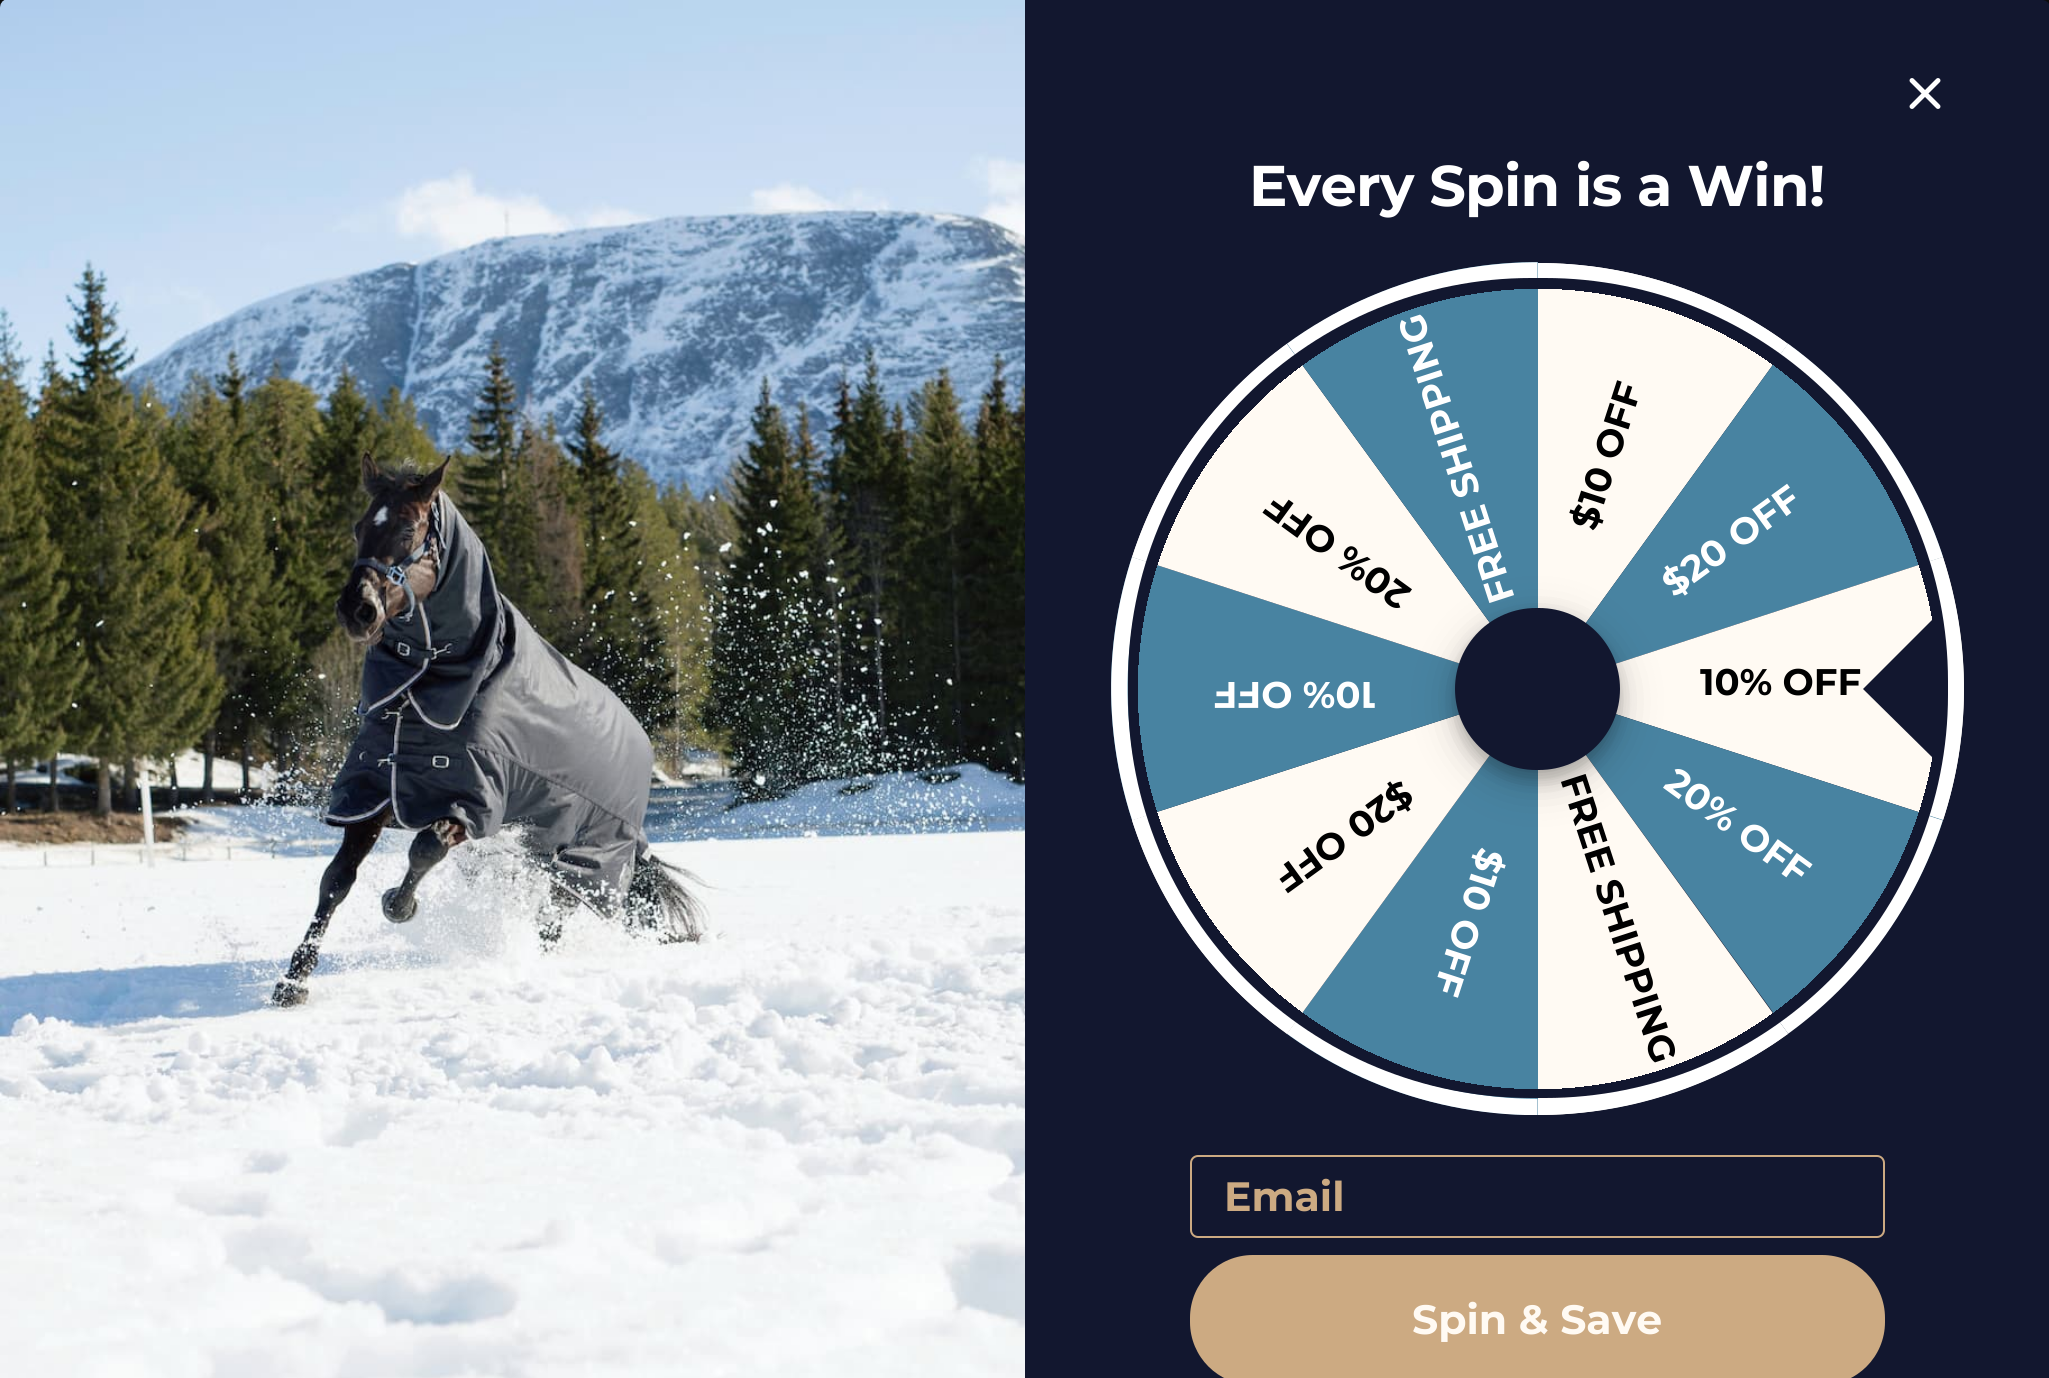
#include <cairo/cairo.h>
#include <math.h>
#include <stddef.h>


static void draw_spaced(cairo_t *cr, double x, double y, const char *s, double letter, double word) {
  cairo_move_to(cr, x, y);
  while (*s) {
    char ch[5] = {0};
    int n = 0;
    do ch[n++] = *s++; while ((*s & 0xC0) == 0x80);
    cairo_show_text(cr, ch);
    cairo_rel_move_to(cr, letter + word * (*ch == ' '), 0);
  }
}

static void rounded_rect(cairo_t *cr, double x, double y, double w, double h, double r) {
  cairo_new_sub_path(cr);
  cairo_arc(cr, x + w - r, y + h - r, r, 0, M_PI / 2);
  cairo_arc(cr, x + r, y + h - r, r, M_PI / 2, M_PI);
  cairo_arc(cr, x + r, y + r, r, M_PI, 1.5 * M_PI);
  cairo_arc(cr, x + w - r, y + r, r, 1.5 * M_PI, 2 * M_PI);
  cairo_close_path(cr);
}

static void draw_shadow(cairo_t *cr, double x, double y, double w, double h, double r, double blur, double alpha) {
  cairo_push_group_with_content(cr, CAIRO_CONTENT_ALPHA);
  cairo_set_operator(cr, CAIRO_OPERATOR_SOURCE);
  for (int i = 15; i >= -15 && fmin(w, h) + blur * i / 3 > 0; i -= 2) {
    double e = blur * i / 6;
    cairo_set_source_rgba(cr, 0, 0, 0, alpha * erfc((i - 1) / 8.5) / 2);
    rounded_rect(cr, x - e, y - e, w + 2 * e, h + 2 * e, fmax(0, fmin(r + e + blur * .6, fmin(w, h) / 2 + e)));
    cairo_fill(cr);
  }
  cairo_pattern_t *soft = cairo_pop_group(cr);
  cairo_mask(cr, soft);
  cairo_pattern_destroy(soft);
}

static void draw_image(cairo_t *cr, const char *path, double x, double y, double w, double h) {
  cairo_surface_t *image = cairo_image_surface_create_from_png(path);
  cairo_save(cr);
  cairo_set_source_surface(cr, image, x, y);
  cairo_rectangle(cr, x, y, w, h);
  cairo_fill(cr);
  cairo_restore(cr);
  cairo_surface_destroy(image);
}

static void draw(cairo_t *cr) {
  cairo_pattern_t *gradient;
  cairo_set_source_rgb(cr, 12 / 255.0, 12 / 255.0, 12 / 255.0);
  cairo_paint(cr);
  cairo_set_source_rgb(cr, 18 / 255.0, 23 / 255.0, 47 / 255.0);
  cairo_new_path(cr);
  cairo_move_to(cr, 8, 0);
  cairo_line_to(cr, 2042, 0);
  cairo_curve_to(cr, 2046.5, 0, 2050, 3.5, 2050, 8);
  cairo_line_to(cr, 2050, 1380);
  cairo_line_to(cr, 0, 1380);
  cairo_line_to(cr, 0, 8);
  cairo_curve_to(cr, 0, 3.5, 3.5, 0, 8, 0);
  cairo_close_path(cr);
  cairo_fill(cr);
  cairo_new_path(cr);
  cairo_move_to(cr, 1912, 80.5);
  cairo_line_to(cr, 1938, 106.5);
  cairo_move_to(cr, 1912, 106.5);
  cairo_line_to(cr, 1938, 80.5);
  cairo_close_path(cr);
  cairo_set_source_rgb(cr, 1, 1, 1);
  cairo_set_line_width(cr, 4.9);
  cairo_set_line_cap(cr, CAIRO_LINE_CAP_ROUND);
  cairo_set_line_join(cr, CAIRO_LINE_JOIN_ROUND);
  cairo_stroke(cr);
  draw_image(cr, "images/1.png", 0, 0, 1025, 1378);
  cairo_set_source_rgb(cr, 1, 250 / 255.0, 243 / 255.0);
  cairo_new_path(cr);
  cairo_move_to(cr, 1538, 689);
  cairo_line_to(cr, 1788, 344);
  cairo_curve_to(cr, 1716, 291, 1627, 263, 1538, 263);
  cairo_close_path(cr);
  cairo_fill(cr);
  cairo_set_source_rgb(cr, 1, 1, 1);
  cairo_new_path(cr);
  cairo_move_to(cr, 1538, 280);
  cairo_curve_to(cr, 1624, 280, 1708, 307, 1778, 357);
  cairo_line_to(cr, 1788, 344);
  cairo_curve_to(cr, 1716, 291, 1627, 263, 1538, 263);
  cairo_close_path(cr);
  cairo_fill(cr);
  rounded_rect(cr, 1191, 1156, 693, 81, 7);
  cairo_set_source_rgb(cr, 204 / 255.0, 170 / 255.0, 130 / 255.0);
  cairo_set_line_width(cr, 2);
  cairo_set_line_cap(cr, CAIRO_LINE_CAP_BUTT);
  cairo_set_line_join(cr, CAIRO_LINE_JOIN_MITER);
  cairo_stroke(cr);
  rounded_rect(cr, 1190, 1255, 695, 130, 63);
  cairo_fill(cr);
  cairo_select_font_face(cr, "Montserrat", CAIRO_FONT_SLANT_NORMAL, CAIRO_FONT_WEIGHT_BOLD);
  cairo_set_font_size(cr, 57.4);
  cairo_set_source_rgb(cr, 1, 1, 1);
  draw_spaced(cr, 1249, 206, "Every Spin is a Win!", -0.7, 0);
  cairo_set_font_size(cr, 37);
  cairo_set_source_rgb(cr, 0, 0, 0);
  cairo_save(cr);
  cairo_translate(cr, 1595, 532);
  cairo_rotate(cr, -72 * M_PI / 180);
  cairo_move_to(cr, 0, 0);
  cairo_show_text(cr, "$10 OFF");
  cairo_restore(cr);
  cairo_set_source_rgb(cr, 72 / 255.0, 131 / 255.0, 161 / 255.0);
  cairo_new_path(cr);
  cairo_move_to(cr, 1788, 344);
  cairo_line_to(cr, 1538, 689);
  cairo_line_to(cr, 1943, 557);
  cairo_curve_to(cr, 1916, 474, 1864, 399, 1788, 344);
  cairo_close_path(cr);
  cairo_fill(cr);
  cairo_save(cr);
  cairo_new_path(cr);
  cairo_move_to(cr, 1537.5, 688.5);
  cairo_line_to(cr, 1788, 343.5);
  cairo_line_to(cr, 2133, 594.5);
  cairo_line_to(cr, 1943, 557);
  cairo_close_path(cr);
  cairo_clip(cr);
  cairo_new_path(cr);
  cairo_move_to(cr, 1783.5, 350.5);
  cairo_curve_to(cr, 1970, 486, 2011.5, 747.5, 1876, 934.5);
  cairo_curve_to(cr, 1740, 1121.5, 1478.5, 1162.5, 1291.5, 1027);
  cairo_curve_to(cr, 1105, 891, 1063.5, 629.5, 1199, 443);
  cairo_curve_to(cr, 1335, 256, 1596.5, 214.5, 1783.5, 350.5);
  cairo_close_path(cr);
  cairo_set_source_rgb(cr, 1, 1, 1);
  cairo_set_line_width(cr, 16.4);
  cairo_stroke(cr);
  cairo_restore(cr);
  cairo_set_source_rgb(cr, 1, 1, 1);
  cairo_save(cr);
  cairo_translate(cr, 1674, 598);
  cairo_rotate(cr, -36 * M_PI / 180);
  cairo_move_to(cr, 0, 0);
  cairo_show_text(cr, "$20 OFF");
  cairo_restore(cr);
  cairo_set_source_rgb(cr, 1, 250 / 255.0, 243 / 255.0);
  cairo_new_path(cr);
  cairo_move_to(cr, 1943, 557);
  cairo_line_to(cr, 1538, 689);
  cairo_line_to(cr, 1943, 820);
  cairo_curve_to(cr, 1970, 738, 1972, 646, 1943, 557);
  cairo_close_path(cr);
  cairo_fill(cr);
  cairo_save(cr);
  cairo_new_path(cr);
  cairo_move_to(cr, 1537.5, 688.5);
  cairo_line_to(cr, 1943, 557);
  cairo_line_to(cr, 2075, 962.5);
  cairo_line_to(cr, 1943, 820.5);
  cairo_close_path(cr);
  cairo_clip(cr);
  cairo_new_path(cr);
  cairo_move_to(cr, 1935, 559.5);
  cairo_curve_to(cr, 2006.5, 779, 1886.5, 1015, 1666.5, 1086.5);
  cairo_curve_to(cr, 1447, 1158, 1211, 1037.5, 1140, 818);
  cairo_curve_to(cr, 1068.5, 598, 1188.5, 362.5, 1408.5, 291);
  cairo_curve_to(cr, 1628, 219.5, 1864, 340, 1935, 559.5);
  cairo_close_path(cr);
  cairo_set_source_rgb(cr, 1, 1, 1);
  cairo_set_line_width(cr, 16.4);
  cairo_stroke(cr);
  cairo_restore(cr);
  cairo_set_source_rgb(cr, 0, 0, 0);
  cairo_move_to(cr, 1700, 695);
  cairo_show_text(cr, "10% OFF");
  cairo_set_source_rgb(cr, 72 / 255.0, 131 / 255.0, 161 / 255.0);
  cairo_new_path(cr);
  cairo_move_to(cr, 1538, 689);
  cairo_line_to(cr, 1943, 820);
  cairo_curve_to(cr, 1914, 909, 1858, 982, 1788, 1033);
  cairo_close_path(cr);
  cairo_fill(cr);
  cairo_save(cr);
  cairo_new_path(cr);
  cairo_move_to(cr, 1537.5, 688.5);
  cairo_line_to(cr, 1943, 820.5);
  cairo_line_to(cr, 1811.5, 1226);
  cairo_line_to(cr, 1788, 1033.5);
  cairo_close_path(cr);
  cairo_clip(cr);
  cairo_new_path(cr);
  cairo_move_to(cr, 1935, 818);
  cairo_curve_to(cr, 1864, 1037.5, 1628, 1158, 1408.5, 1086.5);
  cairo_curve_to(cr, 1188.5, 1015, 1068.5, 779, 1140, 559.5);
  cairo_curve_to(cr, 1211, 340, 1447, 219.5, 1666.5, 291);
  cairo_curve_to(cr, 1886.5, 362.5, 2006.5, 598, 1935, 818);
  cairo_close_path(cr);
  cairo_set_source_rgb(cr, 1, 1, 1);
  cairo_set_line_width(cr, 16.4);
  cairo_stroke(cr);
  cairo_restore(cr);
  cairo_set_source_rgb(cr, 1, 1, 1);
  cairo_save(cr);
  cairo_translate(cr, 1662, 787);
  cairo_rotate(cr, 36 * M_PI / 180);
  cairo_move_to(cr, 0, 0);
  cairo_show_text(cr, "20% OFF");
  cairo_restore(cr);
  cairo_set_source_rgb(cr, 1, 250 / 255.0, 243 / 255.0);
  cairo_new_path(cr);
  cairo_move_to(cr, 1538, 689);
  cairo_line_to(cr, 1788, 1034);
  cairo_curve_to(cr, 1715, 1086, 1627, 1115, 1537, 1115);
  cairo_close_path(cr);
  cairo_fill(cr);
  cairo_save(cr);
  cairo_new_path(cr);
  cairo_move_to(cr, 1537.5, 688.5);
  cairo_line_to(cr, 1788, 1033.5);
  cairo_line_to(cr, 1443, 1284.5);
  cairo_line_to(cr, 1537.5, 1115);
  cairo_close_path(cr);
  cairo_clip(cr);
  cairo_new_path(cr);
  cairo_move_to(cr, 1783.5, 1027);
  cairo_curve_to(cr, 1596.5, 1162.5, 1335, 1121.5, 1199, 934.5);
  cairo_curve_to(cr, 1063.5, 747.5, 1105, 486, 1291.5, 350.5);
  cairo_curve_to(cr, 1478.5, 214.5, 1740, 256, 1876, 443);
  cairo_curve_to(cr, 2011.5, 629.5, 1970, 891, 1783.5, 1027);
  cairo_close_path(cr);
  cairo_set_source_rgb(cr, 1, 1, 1);
  cairo_set_line_width(cr, 16.4);
  cairo_stroke(cr);
  cairo_restore(cr);
  cairo_set_source_rgb(cr, 72 / 255.0, 131 / 255.0, 161 / 255.0);
  cairo_new_path(cr);
  cairo_move_to(cr, 1537, 1115);
  cairo_line_to(cr, 1538, 1115);
  cairo_line_to(cr, 1538, 689);
  cairo_line_to(cr, 1287, 1034);
  cairo_curve_to(cr, 1357, 1085, 1444, 1115, 1537, 1115);
  cairo_close_path(cr);
  cairo_fill(cr);
  cairo_set_source_rgb(cr, 1, 1, 1);
  cairo_save(cr);
  cairo_translate(cr, 1480, 846);
  cairo_rotate(cr, 108 * M_PI / 180);
  cairo_move_to(cr, 0, 0);
  cairo_show_text(cr, "$10 OFF");
  cairo_restore(cr);
  cairo_save(cr);
  cairo_new_path(cr);
  cairo_move_to(cr, 1537.5, 688.5);
  cairo_line_to(cr, 1537.5, 1115);
  cairo_line_to(cr, 1111, 1115);
  cairo_line_to(cr, 1287, 1033.5);
  cairo_close_path(cr);
  cairo_clip(cr);
  cairo_new_path(cr);
  cairo_move_to(cr, 1537.5, 1107);
  cairo_curve_to(cr, 1306.5, 1107, 1119.5, 919.5, 1119.5, 688.5);
  cairo_curve_to(cr, 1119.5, 457.5, 1306.5, 270.5, 1537.5, 270.5);
  cairo_curve_to(cr, 1768.5, 270.5, 1955.5, 457.5, 1955.5, 688.5);
  cairo_curve_to(cr, 1955.5, 919.5, 1768.5, 1107, 1537.5, 1107);
  cairo_close_path(cr);
  cairo_set_line_width(cr, 16.4);
  cairo_stroke(cr);
  cairo_restore(cr);
  cairo_set_source_rgb(cr, 1, 250 / 255.0, 243 / 255.0);
  cairo_new_path(cr);
  cairo_move_to(cr, 1538, 689);
  cairo_line_to(cr, 1287, 1034);
  cairo_curve_to(cr, 1214, 981, 1159, 906, 1132, 820);
  cairo_close_path(cr);
  cairo_fill(cr);
  cairo_save(cr);
  cairo_new_path(cr);
  cairo_move_to(cr, 1537.5, 688.5);
  cairo_line_to(cr, 1287, 1033.5);
  cairo_line_to(cr, 942, 783);
  cairo_line_to(cr, 1132, 820.5);
  cairo_close_path(cr);
  cairo_clip(cr);
  cairo_new_path(cr);
  cairo_move_to(cr, 1291.5, 1027);
  cairo_curve_to(cr, 1105, 891, 1063.5, 629.5, 1199, 443);
  cairo_curve_to(cr, 1335, 256, 1596.5, 214.5, 1783.5, 350.5);
  cairo_curve_to(cr, 1970, 486, 2011.5, 747.5, 1876, 934.5);
  cairo_curve_to(cr, 1740, 1121.5, 1478.5, 1162.5, 1291.5, 1027);
  cairo_close_path(cr);
  cairo_set_source_rgb(cr, 1, 1, 1);
  cairo_set_line_width(cr, 16.4);
  cairo_stroke(cr);
  cairo_restore(cr);
  cairo_set_source_rgb(cr, 0, 0, 0);
  cairo_save(cr);
  cairo_translate(cr, 1401, 779);
  cairo_rotate(cr, 144 * M_PI / 180);
  cairo_move_to(cr, 0, 0);
  cairo_show_text(cr, "$20 OFF");
  cairo_restore(cr);
  cairo_set_source_rgb(cr, 72 / 255.0, 131 / 255.0, 161 / 255.0);
  cairo_new_path(cr);
  cairo_move_to(cr, 1132, 820);
  cairo_line_to(cr, 1538, 689);
  cairo_line_to(cr, 1132, 557);
  cairo_curve_to(cr, 1105, 639, 1103, 731, 1132, 820);
  cairo_close_path(cr);
  cairo_fill(cr);
  cairo_set_source_rgb(cr, 1, 1, 1);
  cairo_save(cr);
  cairo_translate(cr, 1375, 682);
  cairo_rotate(cr, 180 * M_PI / 180);
  cairo_move_to(cr, 0, 0);
  cairo_show_text(cr, "10% OFF");
  cairo_restore(cr);
  cairo_save(cr);
  cairo_new_path(cr);
  cairo_move_to(cr, 1537.5, 688.5);
  cairo_line_to(cr, 1132, 820.5);
  cairo_line_to(cr, 1000, 415);
  cairo_line_to(cr, 1132, 557);
  cairo_close_path(cr);
  cairo_clip(cr);
  cairo_new_path(cr);
  cairo_move_to(cr, 1140, 818);
  cairo_curve_to(cr, 1068.5, 598, 1188.5, 362.5, 1408.5, 291);
  cairo_curve_to(cr, 1628, 219.5, 1864, 340, 1935, 559.5);
  cairo_curve_to(cr, 2006.5, 779, 1886.5, 1015, 1666.5, 1086.5);
  cairo_curve_to(cr, 1447, 1158, 1211, 1037.5, 1140, 818);
  cairo_close_path(cr);
  cairo_set_line_width(cr, 16.4);
  cairo_stroke(cr);
  cairo_restore(cr);
  cairo_set_source_rgb(cr, 1, 250 / 255.0, 243 / 255.0);
  cairo_new_path(cr);
  cairo_move_to(cr, 1538, 689);
  cairo_line_to(cr, 1287, 344);
  cairo_curve_to(cr, 1217, 395, 1161, 468, 1132, 557);
  cairo_close_path(cr);
  cairo_fill(cr);
  cairo_save(cr);
  cairo_new_path(cr);
  cairo_move_to(cr, 1537.5, 688.5);
  cairo_line_to(cr, 1132, 557);
  cairo_line_to(cr, 1263.5, 151.5);
  cairo_line_to(cr, 1287, 343.5);
  cairo_close_path(cr);
  cairo_clip(cr);
  cairo_new_path(cr);
  cairo_move_to(cr, 1140, 559.5);
  cairo_curve_to(cr, 1211, 340, 1447, 219.5, 1666.5, 291);
  cairo_curve_to(cr, 1886.5, 362.5, 2006.5, 598, 1935, 818);
  cairo_curve_to(cr, 1864, 1037.5, 1628, 1158, 1408.5, 1086.5);
  cairo_curve_to(cr, 1188.5, 1015, 1068.5, 779, 1140, 559.5);
  cairo_close_path(cr);
  cairo_set_source_rgb(cr, 1, 1, 1);
  cairo_set_line_width(cr, 16.4);
  cairo_stroke(cr);
  cairo_restore(cr);
  cairo_set_source_rgb(cr, 0, 0, 0);
  cairo_save(cr);
  cairo_translate(cr, 1413, 590);
  cairo_rotate(cr, -144 * M_PI / 180);
  cairo_move_to(cr, 0, 0);
  cairo_show_text(cr, "20% OFF");
  cairo_restore(cr);
  cairo_set_source_rgb(cr, 72 / 255.0, 131 / 255.0, 161 / 255.0);
  cairo_new_path(cr);
  cairo_move_to(cr, 1538, 689);
  cairo_line_to(cr, 1538, 262);
  cairo_curve_to(cr, 1450, 262, 1363, 289, 1287, 344);
  cairo_close_path(cr);
  cairo_fill(cr);
  cairo_save(cr);
  cairo_new_path(cr);
  cairo_move_to(cr, 1537.5, 688.5);
  cairo_line_to(cr, 1287, 343.5);
  cairo_line_to(cr, 1632, 93);
  cairo_line_to(cr, 1537.5, 262.5);
  cairo_close_path(cr);
  cairo_clip(cr);
  cairo_new_path(cr);
  cairo_move_to(cr, 1291.5, 350.5);
  cairo_curve_to(cr, 1478.5, 214.5, 1740, 256, 1876, 443);
  cairo_curve_to(cr, 2011.5, 629.5, 1970, 891, 1783.5, 1027);
  cairo_curve_to(cr, 1596.5, 1162.5, 1335, 1121.5, 1199, 934.5);
  cairo_curve_to(cr, 1063.5, 747.5, 1105, 486, 1291.5, 350.5);
  cairo_close_path(cr);
  cairo_set_source_rgb(cr, 1, 1, 1);
  cairo_set_line_width(cr, 16.4);
  cairo_stroke(cr);
  cairo_restore(cr);
  cairo_set_source_rgb(cr, 1, 1, 1);
  cairo_save(cr);
  cairo_translate(cr, 1515, 598);
  cairo_rotate(cr, -108 * M_PI / 180);
  cairo_move_to(cr, 0, 0);
  cairo_show_text(cr, "FREE SHIPPING");
  cairo_restore(cr);
  cairo_set_source_rgb(cr, 0, 0, 0);
  cairo_save(cr);
  cairo_translate(cr, 1560, 779);
  cairo_rotate(cr, 72 * M_PI / 180);
  cairo_move_to(cr, 0, 0);
  cairo_show_text(cr, "FREE SHIPPING");
  cairo_restore(cr);
  cairo_set_source_rgb(cr, 0, 0, 0);
  draw_shadow(cr, 1455, 620, 165, 163, 81.5, 20.5, 0.2);
  draw_shadow(cr, 1455, 615, 165, 165, 82.5, 8, 0.2);
  cairo_set_source_rgb(cr, 18 / 255.0, 23 / 255.0, 47 / 255.0);
  rounded_rect(cr, 1455, 608, 165, 162, 81);
  cairo_fill(cr);
  cairo_new_path(cr);
  cairo_move_to(cr, 1935, 760);
  cairo_curve_to(cr, 1941, 754, 1945, 746, 1945, 737);
  cairo_line_to(cr, 1945, 641);
  cairo_curve_to(cr, 1945, 632, 1941, 623, 1935, 617);
  cairo_line_to(cr, 1863, 689);
  cairo_close_path(cr);
  cairo_fill(cr);
  gradient = cairo_pattern_create_radial(1538, 689, 0, 1538, 689, 580);
  cairo_pattern_add_color_stop_rgba(gradient, 0.69, 18 / 255.0, 23 / 255.0, 47 / 255.0, 0);
  cairo_pattern_add_color_stop_rgba(gradient, 0.69, 18 / 255.0, 23 / 255.0, 47 / 255.0, 1);
  cairo_set_source(cr, gradient);
  cairo_pattern_destroy(gradient);
  rounded_rect(cr, 1128, 278, 820, 820, 403);
  cairo_fill(cr);
  cairo_set_font_size(cr, 41);
  cairo_set_source_rgb(cr, 204 / 255.0, 170 / 255.0, 130 / 255.0);
  cairo_move_to(cr, 1224, 1211);
  cairo_show_text(cr, "Email");
  cairo_set_source_rgb(cr, 1, 250 / 255.0, 243 / 255.0);
  cairo_move_to(cr, 1412, 1334);
  cairo_show_text(cr, "Spin & Save");
}

int main(void) {
  cairo_surface_t *surface = cairo_image_surface_create(CAIRO_FORMAT_RGB24, 2049, 1378);
  cairo_t *cr = cairo_create(surface);
  cairo_font_options_t *options = cairo_font_options_create();
  cairo_font_options_set_hint_metrics(options, CAIRO_HINT_METRICS_OFF);
  cairo_font_options_set_hint_style(options, CAIRO_HINT_STYLE_NONE);
  cairo_set_font_options(cr, options);
  cairo_set_miter_limit(cr, 4);
  draw(cr);
  cairo_surface_write_to_png(surface, "out.png");
  cairo_font_options_destroy(options);
  cairo_destroy(cr);
  cairo_surface_destroy(surface);
  return 0;
}
